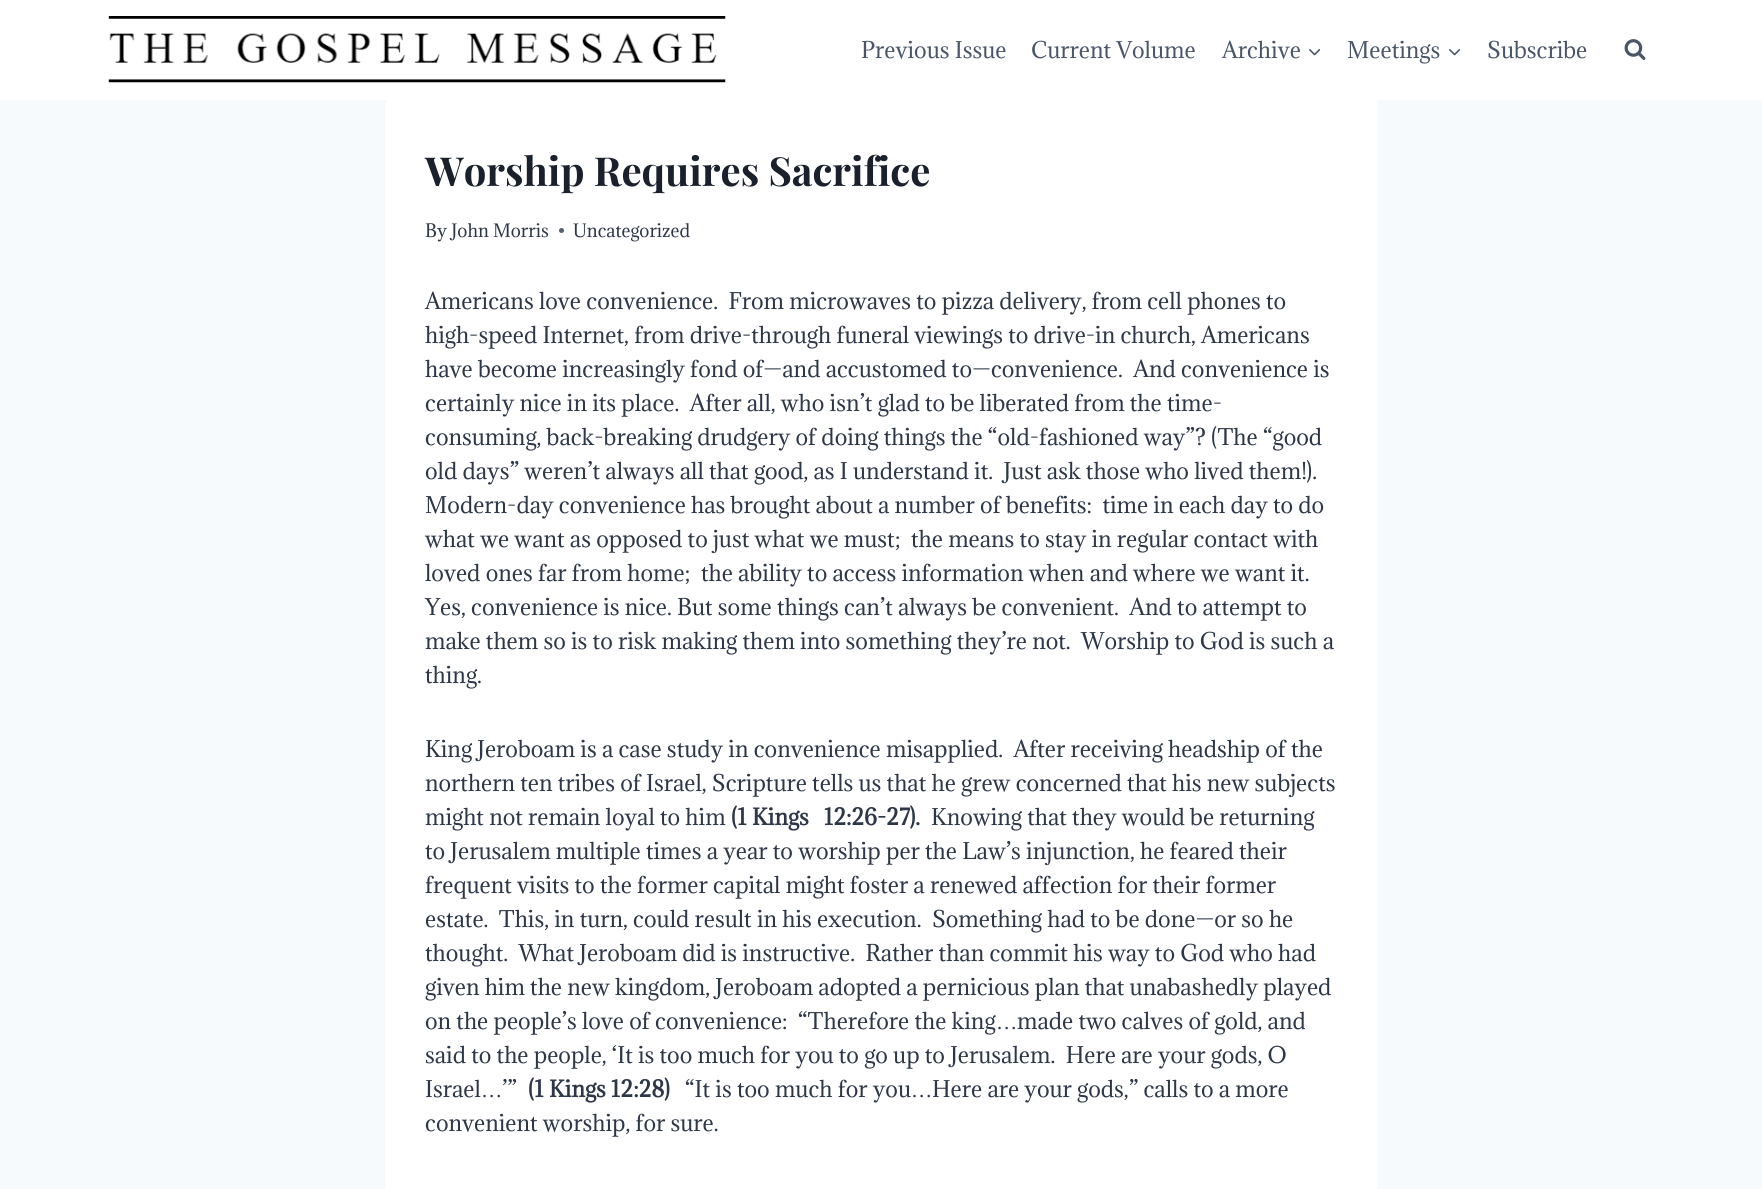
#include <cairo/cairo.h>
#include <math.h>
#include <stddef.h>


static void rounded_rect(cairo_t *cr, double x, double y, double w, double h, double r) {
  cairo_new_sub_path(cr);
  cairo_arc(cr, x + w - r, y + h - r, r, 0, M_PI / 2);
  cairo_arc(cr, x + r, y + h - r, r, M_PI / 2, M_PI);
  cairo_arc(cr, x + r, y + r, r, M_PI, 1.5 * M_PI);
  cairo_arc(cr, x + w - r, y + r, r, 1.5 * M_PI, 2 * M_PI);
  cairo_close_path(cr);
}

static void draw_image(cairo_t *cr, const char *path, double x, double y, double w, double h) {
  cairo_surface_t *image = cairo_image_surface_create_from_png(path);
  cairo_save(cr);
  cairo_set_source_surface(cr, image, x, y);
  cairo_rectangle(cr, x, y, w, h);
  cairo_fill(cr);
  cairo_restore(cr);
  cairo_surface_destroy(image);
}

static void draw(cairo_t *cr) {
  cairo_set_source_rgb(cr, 247 / 255.0, 250 / 255.0, 252 / 255.0);
  cairo_paint(cr);
  cairo_set_source_rgb(cr, 1, 1, 1);
  cairo_rectangle(cr, 0, 0, 1762, 100);
  cairo_fill(cr);
  draw_image(cr, "images/1.png", 108, 16, 618, 67);
  draw_image(cr, "images/2.png", 1309, 49, 12, 7);
  draw_image(cr, "images/2.png", 1449, 49, 12, 7);
  draw_image(cr, "images/3.png", 1624, 39, 22, 21);
  rounded_rect(cr, 385, 100, 993, 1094, 5);
  cairo_fill(cr);
  cairo_set_source_rgb(cr, 87 / 255.0, 95 / 255.0, 109 / 255.0);
  cairo_arc(cr, 561.5, 230.5, 2.5, 0, 2 * M_PI);
  cairo_fill(cr);
  cairo_select_font_face(cr, "Adamina", CAIRO_FONT_SLANT_NORMAL, CAIRO_FONT_WEIGHT_NORMAL);
  cairo_set_font_size(cr, 21.25);
  cairo_set_source_rgb(cr, 74 / 255.0, 85 / 255.0, 104 / 255.0);
  cairo_move_to(cr, 861, 58);
  cairo_show_text(cr, "Previous Issue");
  cairo_move_to(cr, 1031, 58);
  cairo_show_text(cr, "Current Volume");
  cairo_move_to(cr, 1222, 58);
  cairo_show_text(cr, "Archive");
  cairo_move_to(cr, 1347, 58);
  cairo_show_text(cr, "Meetings");
  cairo_move_to(cr, 1487, 58);
  cairo_show_text(cr, "Subscribe");
  cairo_select_font_face(cr, "Playfair Display", CAIRO_FONT_SLANT_NORMAL, CAIRO_FONT_WEIGHT_BOLD);
  cairo_set_font_size(cr, 40);
  cairo_set_source_rgb(cr, 26 / 255.0, 32 / 255.0, 44 / 255.0);
  cairo_move_to(cr, 425, 186);
  cairo_show_text(cr, "Worship Requires Sacrifice");
  cairo_select_font_face(cr, "Adamina", CAIRO_FONT_SLANT_NORMAL, CAIRO_FONT_WEIGHT_NORMAL);
  cairo_set_font_size(cr, 17);
  cairo_set_source_rgb(cr, 45 / 255.0, 55 / 255.0, 72 / 255.0);
  cairo_move_to(cr, 425, 237);
  cairo_show_text(cr, "By John Morris");
  cairo_move_to(cr, 573, 237);
  cairo_show_text(cr, "Uncategorized");
  cairo_set_font_size(cr, 21.25);
  cairo_move_to(cr, 425, 309);
  cairo_show_text(cr, "Americans love convenience.  From microwaves to pizza delivery, from cell phones to");
  cairo_move_to(cr, 425, 343);
  cairo_show_text(cr, "high-speed Internet, from drive-through funeral viewings to drive-in church, Americans");
  cairo_move_to(cr, 425, 377);
  cairo_show_text(cr, "have become increasingly fond of—and accustomed to—convenience.  And convenience is");
  cairo_move_to(cr, 425, 411);
  cairo_show_text(cr, "certainly nice in its place.  After all, who isn’t glad to be liberated from the time-");
  cairo_move_to(cr, 425, 445);
  cairo_show_text(cr, "consuming, back-breaking drudgery of doing things the “old-fashioned way”? (The “good");
  cairo_move_to(cr, 425, 479);
  cairo_show_text(cr, "old days” weren’t always all that good, as I understand it.  Just ask those who lived them!).");
  cairo_move_to(cr, 425, 513);
  cairo_show_text(cr, "Modern-day convenience has brought about a number of benefits:  time in each day to do");
  cairo_move_to(cr, 425, 547);
  cairo_show_text(cr, "what we want as opposed to just what we must;  the means to stay in regular contact with");
  cairo_move_to(cr, 425, 581);
  cairo_show_text(cr, "loved ones far from home;  the ability to access information when and where we want it.");
  cairo_move_to(cr, 425, 615);
  cairo_show_text(cr, "Yes, convenience is nice. But some things can’t always be convenient.  And to attempt to");
  cairo_move_to(cr, 425, 649);
  cairo_show_text(cr, "make them so is to risk making them into something they’re not.  Worship to God is such a");
  cairo_move_to(cr, 425, 683);
  cairo_show_text(cr, "thing.");
  cairo_move_to(cr, 425, 757);
  cairo_show_text(cr, "King Jeroboam is a case study in convenience misapplied.  After receiving headship of the");
  cairo_move_to(cr, 425, 791);
  cairo_show_text(cr, "northern ten tribes of Israel, Scripture tells us that he grew concerned that his new subjects");
  cairo_move_to(cr, 425, 825);
  cairo_show_text(cr, "might not remain loyal to him");
  cairo_select_font_face(cr, "Adamina", CAIRO_FONT_SLANT_NORMAL, CAIRO_FONT_WEIGHT_BOLD);
  cairo_move_to(cr, 731, 825);
  cairo_show_text(cr, "(1 Kings");
  cairo_move_to(cr, 824, 825);
  cairo_show_text(cr, "12:26-27).");
  cairo_select_font_face(cr, "Adamina", CAIRO_FONT_SLANT_NORMAL, CAIRO_FONT_WEIGHT_NORMAL);
  cairo_move_to(cr, 931, 825);
  cairo_show_text(cr, "Knowing that they would be returning");
  cairo_move_to(cr, 425, 859);
  cairo_show_text(cr, "to Jerusalem multiple times a year to worship per the Law’s injunction, he feared their");
  cairo_move_to(cr, 425, 893);
  cairo_show_text(cr, "frequent visits to the former capital might foster a renewed affection for their former");
  cairo_move_to(cr, 425, 927);
  cairo_show_text(cr, "estate.  This, in turn, could result in his execution.  Something had to be done—or so he");
  cairo_move_to(cr, 425, 961);
  cairo_show_text(cr, "thought.  What Jeroboam did is instructive.  Rather than commit his way to God who had");
  cairo_move_to(cr, 425, 995);
  cairo_show_text(cr, "given him the new kingdom, Jeroboam adopted a pernicious plan that unabashedly played");
  cairo_move_to(cr, 425, 1029);
  cairo_show_text(cr, "on the people’s love of convenience:  “Therefore the king");
  cairo_select_font_face(cr, "Liberation Serif", CAIRO_FONT_SLANT_NORMAL, CAIRO_FONT_WEIGHT_NORMAL);
  cairo_move_to(cr, 996, 1029);
  cairo_show_text(cr, "…");
  cairo_select_font_face(cr, "Adamina", CAIRO_FONT_SLANT_NORMAL, CAIRO_FONT_WEIGHT_NORMAL);
  cairo_move_to(cr, 1017, 1029);
  cairo_show_text(cr, "made two calves of gold, and");
  cairo_move_to(cr, 425, 1063);
  cairo_show_text(cr, "said to the people, ‘It is too much for you to go up to Jerusalem.  Here are your gods, O");
  cairo_move_to(cr, 425, 1097);
  cairo_show_text(cr, "Israel");
  cairo_select_font_face(cr, "Liberation Serif", CAIRO_FONT_SLANT_NORMAL, CAIRO_FONT_WEIGHT_NORMAL);
  cairo_move_to(cr, 481, 1097);
  cairo_show_text(cr, "…");
  cairo_select_font_face(cr, "Adamina", CAIRO_FONT_SLANT_NORMAL, CAIRO_FONT_WEIGHT_NORMAL);
  cairo_move_to(cr, 502, 1097);
  cairo_show_text(cr, "’”");
  cairo_select_font_face(cr, "Adamina", CAIRO_FONT_SLANT_NORMAL, CAIRO_FONT_WEIGHT_BOLD);
  cairo_move_to(cr, 528, 1097);
  cairo_show_text(cr, "(1 Kings 12:28)");
  cairo_select_font_face(cr, "Adamina", CAIRO_FONT_SLANT_NORMAL, CAIRO_FONT_WEIGHT_NORMAL);
  cairo_move_to(cr, 685, 1097);
  cairo_show_text(cr, "“It is too much for you");
  cairo_select_font_face(cr, "Liberation Serif", CAIRO_FONT_SLANT_NORMAL, CAIRO_FONT_WEIGHT_NORMAL);
  cairo_move_to(cr, 911, 1097);
  cairo_show_text(cr, "…");
  cairo_select_font_face(cr, "Adamina", CAIRO_FONT_SLANT_NORMAL, CAIRO_FONT_WEIGHT_NORMAL);
  cairo_move_to(cr, 932, 1097);
  cairo_show_text(cr, "Here are your gods,” calls to a more");
  cairo_move_to(cr, 425, 1131);
  cairo_show_text(cr, "convenient worship, for sure.");
}

int main(void) {
  cairo_surface_t *surface = cairo_image_surface_create(CAIRO_FORMAT_RGB24, 1762, 1189);
  cairo_t *cr = cairo_create(surface);
  cairo_font_options_t *options = cairo_font_options_create();
  cairo_font_options_set_hint_metrics(options, CAIRO_HINT_METRICS_OFF);
  cairo_font_options_set_hint_style(options, CAIRO_HINT_STYLE_NONE);
  cairo_set_font_options(cr, options);
  cairo_set_miter_limit(cr, 4);
  draw(cr);
  cairo_surface_write_to_png(surface, "out.png");
  cairo_font_options_destroy(options);
  cairo_destroy(cr);
  cairo_surface_destroy(surface);
  return 0;
}
